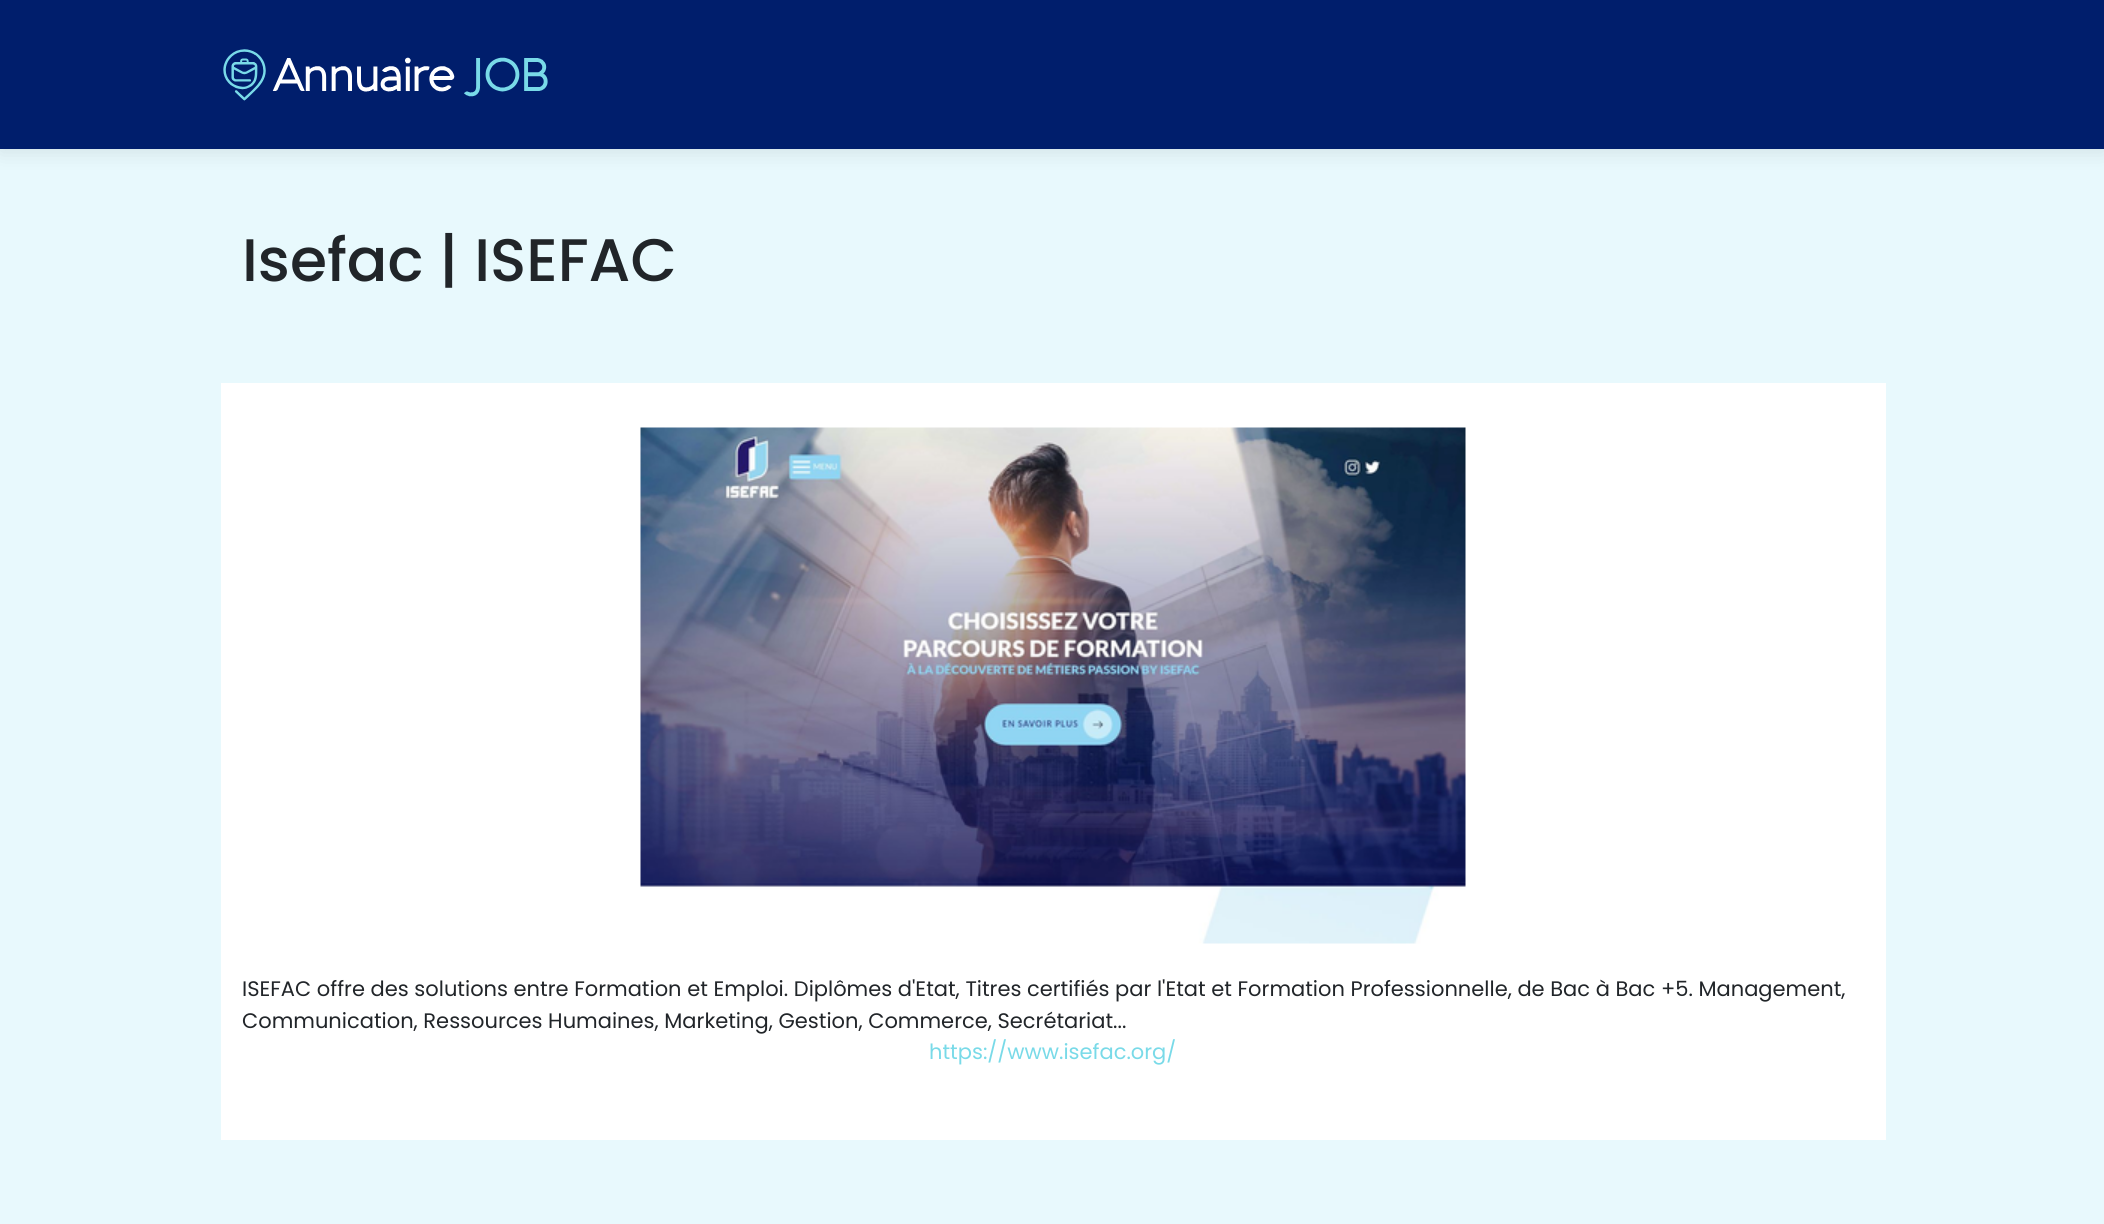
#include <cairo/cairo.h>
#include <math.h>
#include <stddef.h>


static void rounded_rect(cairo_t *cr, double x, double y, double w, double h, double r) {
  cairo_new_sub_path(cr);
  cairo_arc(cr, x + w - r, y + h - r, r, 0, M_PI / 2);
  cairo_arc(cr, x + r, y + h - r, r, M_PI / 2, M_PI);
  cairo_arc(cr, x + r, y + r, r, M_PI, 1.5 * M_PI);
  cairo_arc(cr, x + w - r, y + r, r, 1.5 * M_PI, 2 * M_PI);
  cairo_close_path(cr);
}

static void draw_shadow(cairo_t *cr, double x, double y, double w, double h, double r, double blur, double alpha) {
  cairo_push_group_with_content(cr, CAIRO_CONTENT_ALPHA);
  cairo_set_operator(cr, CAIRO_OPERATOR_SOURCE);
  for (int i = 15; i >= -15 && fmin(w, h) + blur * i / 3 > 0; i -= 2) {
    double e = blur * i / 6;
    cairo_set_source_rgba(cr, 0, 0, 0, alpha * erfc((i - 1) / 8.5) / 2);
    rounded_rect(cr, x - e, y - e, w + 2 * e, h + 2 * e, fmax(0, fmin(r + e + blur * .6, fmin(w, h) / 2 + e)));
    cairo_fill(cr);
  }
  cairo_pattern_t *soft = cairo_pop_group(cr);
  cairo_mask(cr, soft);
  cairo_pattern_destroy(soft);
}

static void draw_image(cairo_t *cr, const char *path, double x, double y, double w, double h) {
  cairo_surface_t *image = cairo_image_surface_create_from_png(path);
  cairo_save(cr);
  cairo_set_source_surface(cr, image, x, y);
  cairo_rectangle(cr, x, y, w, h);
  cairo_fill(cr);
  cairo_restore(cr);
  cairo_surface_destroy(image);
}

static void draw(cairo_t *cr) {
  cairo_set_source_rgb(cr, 232 / 255.0, 249 / 255.0, 253 / 255.0);
  cairo_paint(cr);
  cairo_set_source_rgb(cr, 0, 0, 0);
  draw_shadow(cr, 0, 3, 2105, 149, 0, 10, 0.1);
  cairo_set_source_rgb(cr, 0, 30 / 255.0, 108 / 255.0);
  cairo_rectangle(cr, 0, 0, 2104, 149);
  cairo_fill(cr);
  draw_image(cr, "images/1.png", 223, 49, 325, 52);
  cairo_set_source_rgb(cr, 1, 1, 1);
  cairo_rectangle(cr, 221, 383, 1665, 757);
  cairo_fill(cr);
  draw_image(cr, "images/2.png", 640, 427, 826, 517);
  cairo_select_font_face(cr, "Poppins Medium", CAIRO_FONT_SLANT_NORMAL, CAIRO_FONT_WEIGHT_NORMAL);
  cairo_set_font_size(cr, 60);
  cairo_set_source_rgb(cr, 33 / 255.0, 37 / 255.0, 41 / 255.0);
  cairo_move_to(cr, 242, 281);
  cairo_show_text(cr, "Isefac | ISEFAC");
  cairo_select_font_face(cr, "Poppins", CAIRO_FONT_SLANT_NORMAL, CAIRO_FONT_WEIGHT_NORMAL);
  cairo_set_font_size(cr, 21);
  cairo_move_to(cr, 242, 996);
  cairo_show_text(cr, "ISEFAC offre des solutions entre Formation et Emploi. Diplômes d'Etat, Titres certifiés par l'Etat et Formation Professionnelle, de Bac à Bac +5. Management,");
  cairo_move_to(cr, 242, 1028);
  cairo_show_text(cr, "Communication, Ressources Humaines, Marketing, Gestion, Commerce, Secrétariat...");
  cairo_set_source_rgb(cr, 121 / 255.0, 218 / 255.0, 232 / 255.0);
  cairo_move_to(cr, 929, 1059);
  cairo_show_text(cr, "https://www.isefac.org/");
}

int main(void) {
  cairo_surface_t *surface = cairo_image_surface_create(CAIRO_FORMAT_RGB24, 2104, 1224);
  cairo_t *cr = cairo_create(surface);
  cairo_font_options_t *options = cairo_font_options_create();
  cairo_font_options_set_hint_metrics(options, CAIRO_HINT_METRICS_OFF);
  cairo_font_options_set_hint_style(options, CAIRO_HINT_STYLE_NONE);
  cairo_set_font_options(cr, options);
  cairo_set_miter_limit(cr, 4);
  draw(cr);
  cairo_surface_write_to_png(surface, "out.png");
  cairo_font_options_destroy(options);
  cairo_destroy(cr);
  cairo_surface_destroy(surface);
  return 0;
}
